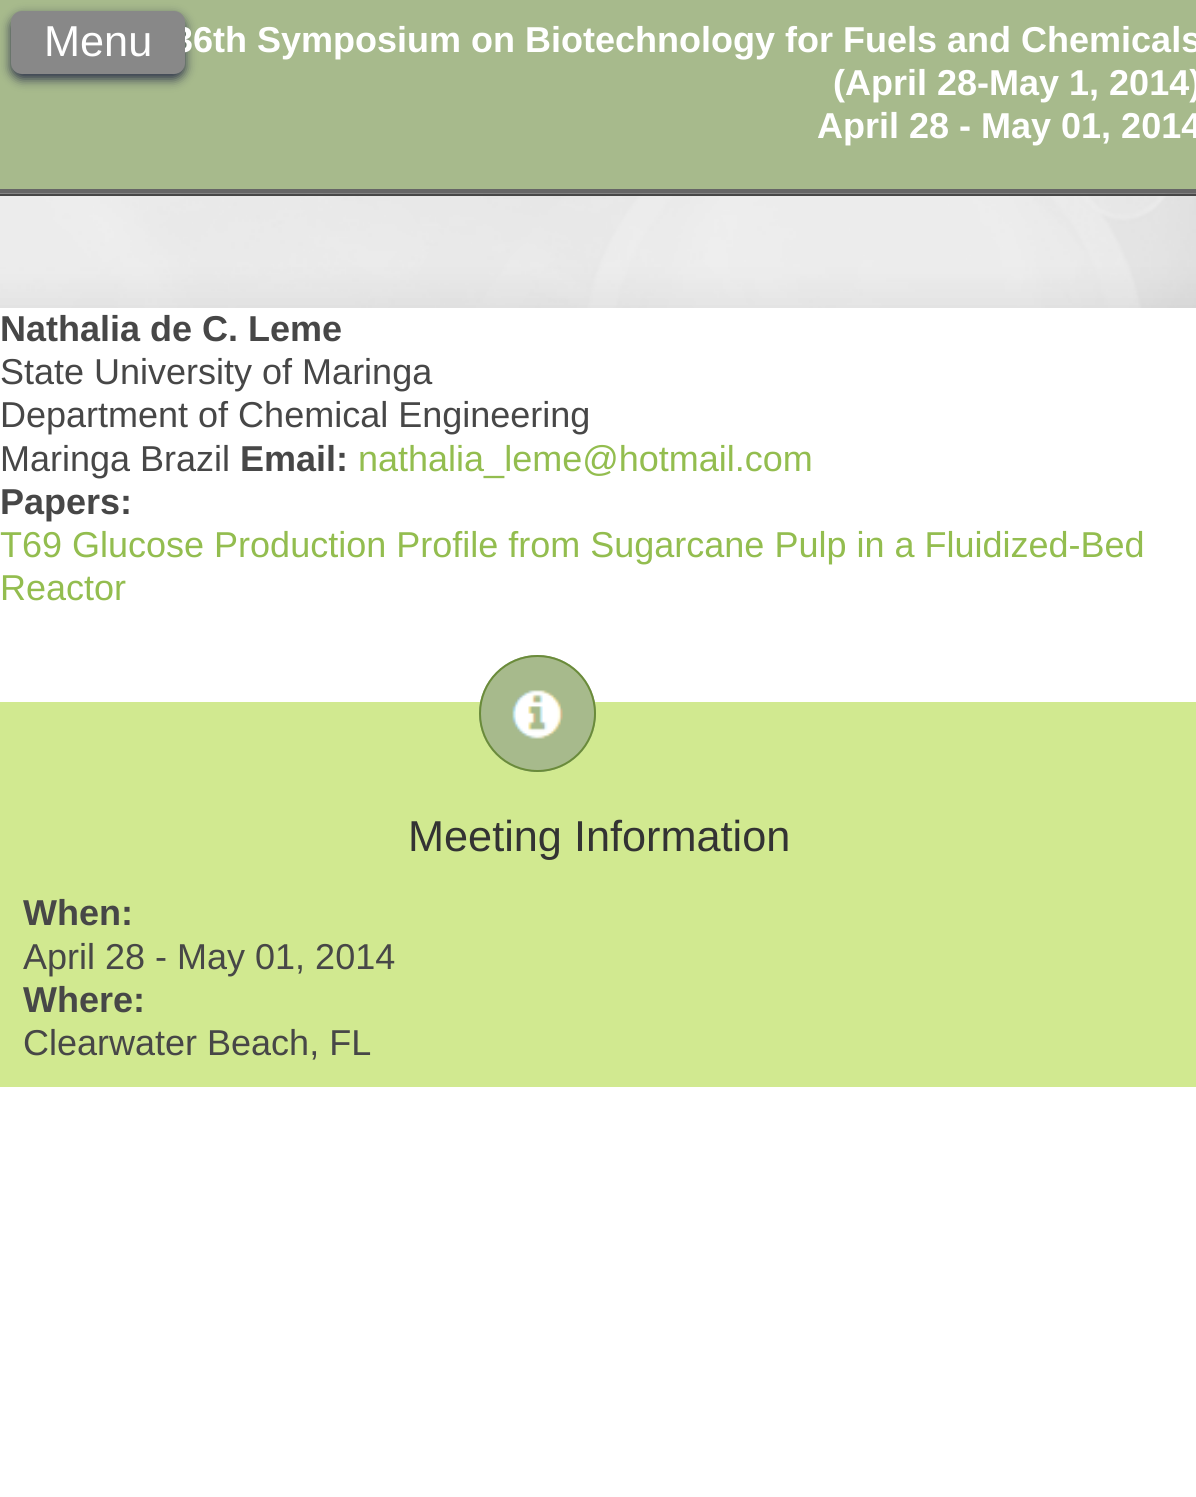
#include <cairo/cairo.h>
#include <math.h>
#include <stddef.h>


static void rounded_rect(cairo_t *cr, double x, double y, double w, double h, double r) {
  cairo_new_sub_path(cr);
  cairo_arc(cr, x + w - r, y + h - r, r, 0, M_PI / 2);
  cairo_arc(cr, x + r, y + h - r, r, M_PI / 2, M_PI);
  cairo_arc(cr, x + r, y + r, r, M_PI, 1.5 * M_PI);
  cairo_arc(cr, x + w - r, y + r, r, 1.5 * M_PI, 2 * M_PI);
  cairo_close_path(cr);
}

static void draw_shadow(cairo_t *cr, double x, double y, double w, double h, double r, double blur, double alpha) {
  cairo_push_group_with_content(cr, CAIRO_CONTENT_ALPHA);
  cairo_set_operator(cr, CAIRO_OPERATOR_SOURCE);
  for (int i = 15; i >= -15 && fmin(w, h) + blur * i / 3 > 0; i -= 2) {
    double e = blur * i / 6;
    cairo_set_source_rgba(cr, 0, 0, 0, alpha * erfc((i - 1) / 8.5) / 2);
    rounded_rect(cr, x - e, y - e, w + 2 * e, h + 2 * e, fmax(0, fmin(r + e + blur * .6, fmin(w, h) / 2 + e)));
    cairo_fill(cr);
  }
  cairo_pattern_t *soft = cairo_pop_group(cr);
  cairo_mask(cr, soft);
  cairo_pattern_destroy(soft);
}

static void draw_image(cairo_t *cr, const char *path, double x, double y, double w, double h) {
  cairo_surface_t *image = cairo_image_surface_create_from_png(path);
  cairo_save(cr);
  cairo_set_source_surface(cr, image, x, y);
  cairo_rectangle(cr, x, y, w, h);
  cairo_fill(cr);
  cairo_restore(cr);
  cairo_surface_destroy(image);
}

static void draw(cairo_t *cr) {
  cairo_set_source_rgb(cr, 1, 1, 1);
  cairo_paint(cr);
  cairo_set_source_rgb(cr, 167 / 255.0, 186 / 255.0, 140 / 255.0);
  cairo_rectangle(cr, 0, 0, 1196, 189);
  cairo_fill(cr);
  cairo_set_source_rgb(cr, 102 / 255.0, 102 / 255.0, 102 / 255.0);
  cairo_rectangle(cr, 0, 189, 1196, 5);
  cairo_fill(cr);
  cairo_set_source_rgb(cr, 0, 0, 51 / 255.0);
  draw_shadow(cr, 11, 16, 174, 63, 11, 5.5, 0.75);
  cairo_set_source_rgb(cr, 229 / 255.0, 229 / 255.0, 229 / 255.0);
  cairo_rectangle(cr, 0, 196, 1196, 112);
  cairo_fill(cr);
  draw_image(cr, "images/1.png", 0, 193, 1196, 115);
  cairo_set_source_rgb(cr, 71 / 255.0, 71 / 255.0, 71 / 255.0);
  cairo_rectangle(cr, 0, 194, 1196, 2);
  cairo_fill(cr);
  cairo_set_source_rgb(cr, 209 / 255.0, 233 / 255.0, 144 / 255.0);
  cairo_rectangle(cr, 0, 702, 1196, 385);
  cairo_fill(cr);
  cairo_set_source_rgb(cr, 167 / 255.0, 186 / 255.0, 140 / 255.0);
  cairo_arc(cr, 537.5, 713.5, 58.5, 0, 2 * M_PI);
  cairo_fill(cr);
  draw_image(cr, "images/2.png", 512, 690, 51, 49);
  cairo_arc(cr, 537.5, 713.5, 57.5, 0, 2 * M_PI);
  cairo_set_source_rgb(cr, 106 / 255.0, 139 / 255.0, 58 / 255.0);
  cairo_stroke(cr);
  cairo_select_font_face(cr, "Liberation Sans", CAIRO_FONT_SLANT_NORMAL, CAIRO_FONT_WEIGHT_BOLD);
  cairo_set_font_size(cr, 36);
  cairo_set_source_rgb(cr, 1, 1, 1);
  cairo_move_to(cr, 173, 52);
  cairo_show_text(cr, "36th Symposium on Biotechnology for Fuels and Chemicals");
  cairo_set_source_rgb(cr, 136 / 255.0, 136 / 255.0, 136 / 255.0);
  rounded_rect(cr, 11, 11, 174, 63, 11);
  cairo_fill(cr);
  cairo_select_font_face(cr, "Liberation Sans", CAIRO_FONT_SLANT_NORMAL, CAIRO_FONT_WEIGHT_NORMAL);
  cairo_set_font_size(cr, 43.25);
  cairo_set_source_rgb(cr, 1, 1, 1);
  cairo_move_to(cr, 44, 56);
  cairo_show_text(cr, "Menu");
  cairo_select_font_face(cr, "Liberation Sans", CAIRO_FONT_SLANT_NORMAL, CAIRO_FONT_WEIGHT_BOLD);
  cairo_set_font_size(cr, 36);
  cairo_move_to(cr, 833, 95);
  cairo_show_text(cr, "(April 28-May 1, 2014)");
  cairo_move_to(cr, 817, 138);
  cairo_show_text(cr, "April 28 - May 01, 2014");
  cairo_set_source_rgb(cr, 71 / 255.0, 71 / 255.0, 71 / 255.0);
  cairo_move_to(cr, 0, 341);
  cairo_show_text(cr, "Nathalia de C. Leme");
  cairo_select_font_face(cr, "Liberation Sans", CAIRO_FONT_SLANT_NORMAL, CAIRO_FONT_WEIGHT_NORMAL);
  cairo_move_to(cr, 0, 384);
  cairo_show_text(cr, "State University of Maringa");
  cairo_move_to(cr, 0, 427);
  cairo_show_text(cr, "Department of Chemical Engineering");
  cairo_move_to(cr, 0, 471);
  cairo_show_text(cr, "Maringa Brazil");
  cairo_select_font_face(cr, "Liberation Sans", CAIRO_FONT_SLANT_NORMAL, CAIRO_FONT_WEIGHT_BOLD);
  cairo_move_to(cr, 240, 471);
  cairo_show_text(cr, "Email:");
  cairo_select_font_face(cr, "Liberation Sans", CAIRO_FONT_SLANT_NORMAL, CAIRO_FONT_WEIGHT_NORMAL);
  cairo_set_source_rgb(cr, 147 / 255.0, 189 / 255.0, 79 / 255.0);
  cairo_move_to(cr, 358, 471);
  cairo_show_text(cr, "nathalia_leme@hotmail.com");
  cairo_select_font_face(cr, "Liberation Sans", CAIRO_FONT_SLANT_NORMAL, CAIRO_FONT_WEIGHT_BOLD);
  cairo_set_source_rgb(cr, 71 / 255.0, 71 / 255.0, 71 / 255.0);
  cairo_move_to(cr, 0, 514);
  cairo_show_text(cr, "Papers:");
  cairo_select_font_face(cr, "Liberation Sans", CAIRO_FONT_SLANT_NORMAL, CAIRO_FONT_WEIGHT_NORMAL);
  cairo_set_source_rgb(cr, 147 / 255.0, 189 / 255.0, 79 / 255.0);
  cairo_move_to(cr, 0, 557);
  cairo_show_text(cr, "T69 Glucose Production Profile from Sugarcane Pulp in a Fluidized-Bed");
  cairo_move_to(cr, 0, 600);
  cairo_show_text(cr, "Reactor");
  cairo_set_font_size(cr, 43.25);
  cairo_set_source_rgb(cr, 51 / 255.0, 51 / 255.0, 51 / 255.0);
  cairo_move_to(cr, 408, 851);
  cairo_show_text(cr, "Meeting Information");
  cairo_select_font_face(cr, "Liberation Sans", CAIRO_FONT_SLANT_NORMAL, CAIRO_FONT_WEIGHT_BOLD);
  cairo_set_font_size(cr, 36);
  cairo_set_source_rgb(cr, 71 / 255.0, 71 / 255.0, 71 / 255.0);
  cairo_move_to(cr, 23, 925);
  cairo_show_text(cr, "When:");
  cairo_select_font_face(cr, "Liberation Sans", CAIRO_FONT_SLANT_NORMAL, CAIRO_FONT_WEIGHT_NORMAL);
  cairo_move_to(cr, 23, 969);
  cairo_show_text(cr, "April 28 - May 01, 2014");
  cairo_select_font_face(cr, "Liberation Sans", CAIRO_FONT_SLANT_NORMAL, CAIRO_FONT_WEIGHT_BOLD);
  cairo_move_to(cr, 23, 1012);
  cairo_show_text(cr, "Where:");
  cairo_select_font_face(cr, "Liberation Sans", CAIRO_FONT_SLANT_NORMAL, CAIRO_FONT_WEIGHT_NORMAL);
  cairo_move_to(cr, 23, 1055);
  cairo_show_text(cr, "Clearwater Beach, FL");
}

int main(void) {
  cairo_surface_t *surface = cairo_image_surface_create(CAIRO_FORMAT_RGB24, 1196, 1497);
  cairo_t *cr = cairo_create(surface);
  cairo_font_options_t *options = cairo_font_options_create();
  cairo_font_options_set_hint_metrics(options, CAIRO_HINT_METRICS_OFF);
  cairo_font_options_set_hint_style(options, CAIRO_HINT_STYLE_NONE);
  cairo_set_font_options(cr, options);
  cairo_set_miter_limit(cr, 4);
  draw(cr);
  cairo_surface_write_to_png(surface, "out.png");
  cairo_font_options_destroy(options);
  cairo_destroy(cr);
  cairo_surface_destroy(surface);
  return 0;
}
